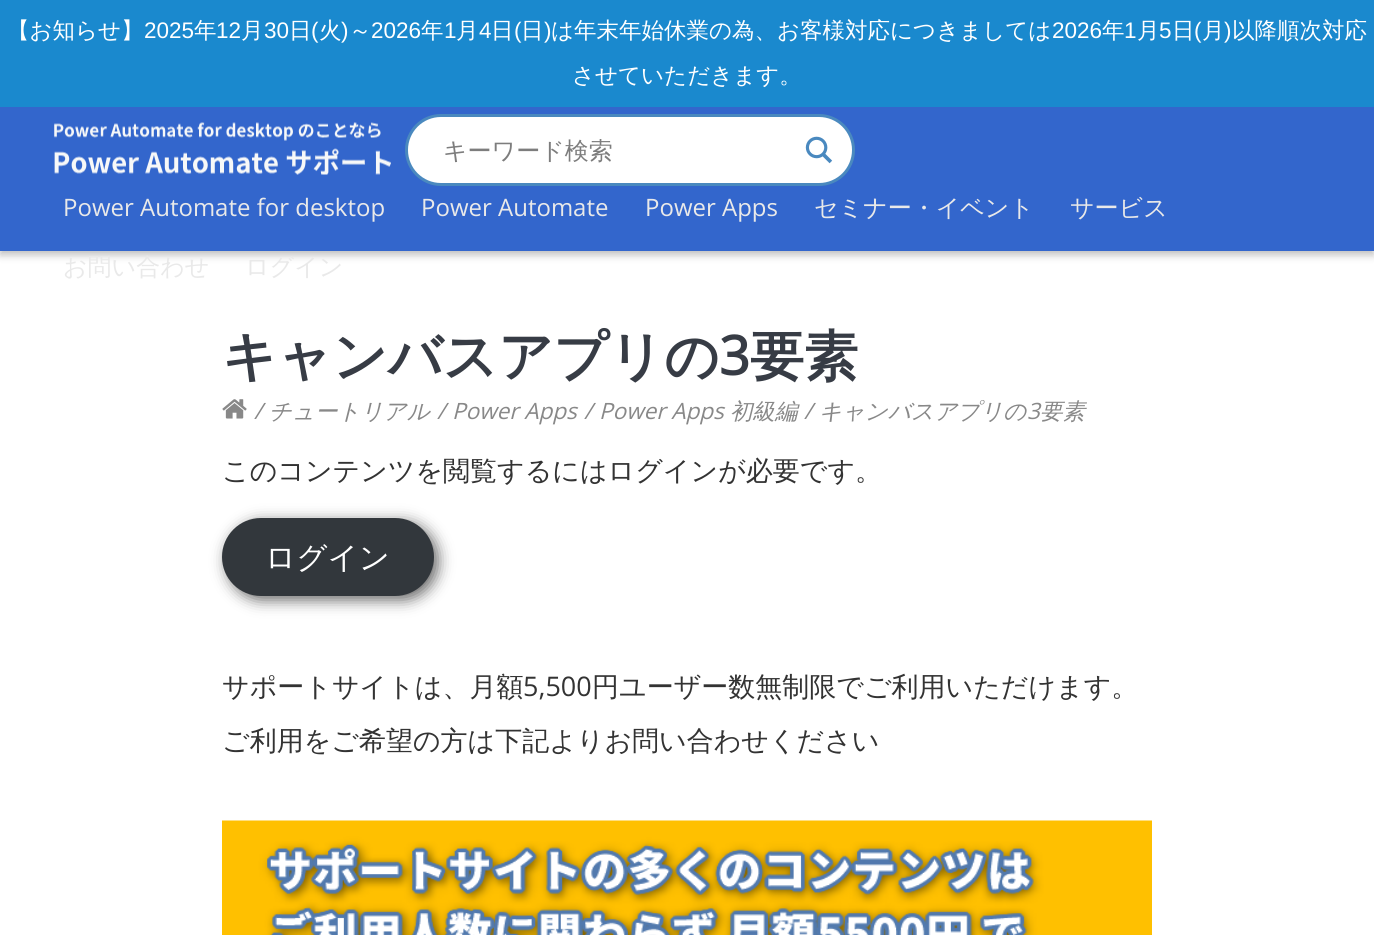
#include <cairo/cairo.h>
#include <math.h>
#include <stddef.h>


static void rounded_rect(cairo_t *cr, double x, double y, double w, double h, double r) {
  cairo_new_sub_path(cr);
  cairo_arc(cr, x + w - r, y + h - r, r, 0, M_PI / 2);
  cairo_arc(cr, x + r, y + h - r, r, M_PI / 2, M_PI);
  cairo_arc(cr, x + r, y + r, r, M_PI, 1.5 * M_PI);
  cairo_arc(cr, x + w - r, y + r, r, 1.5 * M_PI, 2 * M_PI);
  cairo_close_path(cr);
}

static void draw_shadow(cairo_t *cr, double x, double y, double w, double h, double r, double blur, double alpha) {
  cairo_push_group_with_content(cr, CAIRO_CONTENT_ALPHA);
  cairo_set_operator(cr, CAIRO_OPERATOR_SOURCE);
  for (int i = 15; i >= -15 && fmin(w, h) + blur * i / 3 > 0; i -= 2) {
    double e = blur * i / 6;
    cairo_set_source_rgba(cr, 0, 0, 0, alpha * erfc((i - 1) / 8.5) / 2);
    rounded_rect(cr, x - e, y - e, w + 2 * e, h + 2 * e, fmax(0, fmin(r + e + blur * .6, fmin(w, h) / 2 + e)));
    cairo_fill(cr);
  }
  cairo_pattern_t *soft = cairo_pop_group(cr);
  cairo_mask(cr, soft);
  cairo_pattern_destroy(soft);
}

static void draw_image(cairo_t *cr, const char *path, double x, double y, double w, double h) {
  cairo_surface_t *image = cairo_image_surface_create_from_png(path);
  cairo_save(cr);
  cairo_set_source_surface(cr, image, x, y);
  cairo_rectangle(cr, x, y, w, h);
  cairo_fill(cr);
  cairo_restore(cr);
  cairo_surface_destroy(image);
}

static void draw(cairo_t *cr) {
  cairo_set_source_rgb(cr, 1, 1, 1);
  cairo_paint(cr);
  cairo_set_source_rgb(cr, 40 / 255.0, 40 / 255.0, 40 / 255.0);
  draw_shadow(cr, 0, 111, 1374, 144, 0, 4, 0.3);
  cairo_set_source_rgb(cr, 26 / 255.0, 137 / 255.0, 206 / 255.0);
  cairo_rectangle(cr, 0, 0, 1374, 107);
  cairo_fill(cr);
  cairo_set_source_rgb(cr, 51 / 255.0, 102 / 255.0, 204 / 255.0);
  cairo_rectangle(cr, 0, 107, 1374, 144);
  cairo_fill(cr);
  draw_image(cr, "images/1.png", 54, 122, 337, 53);
  cairo_set_source_rgb(cr, 1, 1, 1);
  rounded_rect(cr, 406.5, 115.5, 447, 69, 34.5);
  cairo_fill_preserve(cr);
  cairo_set_source_rgb(cr, 74 / 255.0, 137 / 255.0, 191 / 255.0);
  cairo_set_line_width(cr, 3);
  cairo_stroke(cr);
  draw_image(cr, "images/2.png", 805, 136, 28, 28);
  draw_image(cr, "images/3.png", 222, 399, 25, 20);
  cairo_set_source_rgb(cr, 102 / 255.0, 102 / 255.0, 102 / 255.0);
  draw_shadow(cr, 227, 522, 211, 78, 39, 7.5, 1);
  cairo_set_source_rgb(cr, 50 / 255.0, 55 / 255.0, 60 / 255.0);
  rounded_rect(cr, 222, 518, 212, 78, 39);
  cairo_fill(cr);
  draw_image(cr, "images/4.png", 222, 820, 930, 115);
  cairo_select_font_face(cr, "WenQuanYi Zen Hei Medium", CAIRO_FONT_SLANT_NORMAL, CAIRO_FONT_WEIGHT_NORMAL);
  cairo_set_font_size(cr, 22.5);
  cairo_set_source_rgb(cr, 1, 1, 1);
  cairo_move_to(cr, 7, 38);
  cairo_show_text(cr, "【お知らせ】");
  cairo_select_font_face(cr, "Liberation Sans", CAIRO_FONT_SLANT_NORMAL, CAIRO_FONT_WEIGHT_NORMAL);
  cairo_move_to(cr, 144, 38);
  cairo_show_text(cr, "2025");
  cairo_select_font_face(cr, "WenQuanYi Zen Hei Medium", CAIRO_FONT_SLANT_NORMAL, CAIRO_FONT_WEIGHT_NORMAL);
  cairo_move_to(cr, 194, 38);
  cairo_show_text(cr, "年");
  cairo_select_font_face(cr, "Liberation Sans", CAIRO_FONT_SLANT_NORMAL, CAIRO_FONT_WEIGHT_NORMAL);
  cairo_move_to(cr, 216, 38);
  cairo_show_text(cr, "12");
  cairo_select_font_face(cr, "WenQuanYi Zen Hei Medium", CAIRO_FONT_SLANT_NORMAL, CAIRO_FONT_WEIGHT_NORMAL);
  cairo_move_to(cr, 241, 38);
  cairo_show_text(cr, "月");
  cairo_select_font_face(cr, "Liberation Sans", CAIRO_FONT_SLANT_NORMAL, CAIRO_FONT_WEIGHT_NORMAL);
  cairo_move_to(cr, 264, 38);
  cairo_show_text(cr, "30");
  cairo_select_font_face(cr, "WenQuanYi Zen Hei Medium", CAIRO_FONT_SLANT_NORMAL, CAIRO_FONT_WEIGHT_NORMAL);
  cairo_move_to(cr, 289, 38);
  cairo_show_text(cr, "日");
  cairo_select_font_face(cr, "Liberation Sans", CAIRO_FONT_SLANT_NORMAL, CAIRO_FONT_WEIGHT_NORMAL);
  cairo_move_to(cr, 311, 38);
  cairo_show_text(cr, "(");
  cairo_select_font_face(cr, "WenQuanYi Zen Hei Medium", CAIRO_FONT_SLANT_NORMAL, CAIRO_FONT_WEIGHT_NORMAL);
  cairo_move_to(cr, 319, 38);
  cairo_show_text(cr, "火");
  cairo_select_font_face(cr, "Liberation Sans", CAIRO_FONT_SLANT_NORMAL, CAIRO_FONT_WEIGHT_NORMAL);
  cairo_move_to(cr, 341, 38);
  cairo_show_text(cr, ")");
  cairo_select_font_face(cr, "WenQuanYi Zen Hei Medium", CAIRO_FONT_SLANT_NORMAL, CAIRO_FONT_WEIGHT_NORMAL);
  cairo_move_to(cr, 349, 38);
  cairo_show_text(cr, "～");
  cairo_select_font_face(cr, "Liberation Sans", CAIRO_FONT_SLANT_NORMAL, CAIRO_FONT_WEIGHT_NORMAL);
  cairo_move_to(cr, 371, 38);
  cairo_show_text(cr, "2026");
  cairo_select_font_face(cr, "WenQuanYi Zen Hei Medium", CAIRO_FONT_SLANT_NORMAL, CAIRO_FONT_WEIGHT_NORMAL);
  cairo_move_to(cr, 421, 38);
  cairo_show_text(cr, "年");
  cairo_select_font_face(cr, "Liberation Sans", CAIRO_FONT_SLANT_NORMAL, CAIRO_FONT_WEIGHT_NORMAL);
  cairo_move_to(cr, 444, 38);
  cairo_show_text(cr, "1");
  cairo_select_font_face(cr, "WenQuanYi Zen Hei Medium", CAIRO_FONT_SLANT_NORMAL, CAIRO_FONT_WEIGHT_NORMAL);
  cairo_move_to(cr, 456, 38);
  cairo_show_text(cr, "月");
  cairo_select_font_face(cr, "Liberation Sans", CAIRO_FONT_SLANT_NORMAL, CAIRO_FONT_WEIGHT_NORMAL);
  cairo_move_to(cr, 479, 38);
  cairo_show_text(cr, "4");
  cairo_select_font_face(cr, "WenQuanYi Zen Hei Medium", CAIRO_FONT_SLANT_NORMAL, CAIRO_FONT_WEIGHT_NORMAL);
  cairo_move_to(cr, 491, 38);
  cairo_show_text(cr, "日");
  cairo_select_font_face(cr, "Liberation Sans", CAIRO_FONT_SLANT_NORMAL, CAIRO_FONT_WEIGHT_NORMAL);
  cairo_move_to(cr, 514, 38);
  cairo_show_text(cr, "(");
  cairo_select_font_face(cr, "WenQuanYi Zen Hei Medium", CAIRO_FONT_SLANT_NORMAL, CAIRO_FONT_WEIGHT_NORMAL);
  cairo_move_to(cr, 521, 38);
  cairo_show_text(cr, "日");
  cairo_select_font_face(cr, "Liberation Sans", CAIRO_FONT_SLANT_NORMAL, CAIRO_FONT_WEIGHT_NORMAL);
  cairo_move_to(cr, 544, 38);
  cairo_show_text(cr, ")");
  cairo_select_font_face(cr, "WenQuanYi Zen Hei Medium", CAIRO_FONT_SLANT_NORMAL, CAIRO_FONT_WEIGHT_NORMAL);
  cairo_move_to(cr, 551, 38);
  cairo_show_text(cr, "は年末年始休業の為、お客様対応につきましては");
  cairo_select_font_face(cr, "Liberation Sans", CAIRO_FONT_SLANT_NORMAL, CAIRO_FONT_WEIGHT_NORMAL);
  cairo_move_to(cr, 1052, 38);
  cairo_show_text(cr, "2026");
  cairo_select_font_face(cr, "WenQuanYi Zen Hei Medium", CAIRO_FONT_SLANT_NORMAL, CAIRO_FONT_WEIGHT_NORMAL);
  cairo_move_to(cr, 1102, 38);
  cairo_show_text(cr, "年");
  cairo_select_font_face(cr, "Liberation Sans", CAIRO_FONT_SLANT_NORMAL, CAIRO_FONT_WEIGHT_NORMAL);
  cairo_move_to(cr, 1124, 38);
  cairo_show_text(cr, "1");
  cairo_select_font_face(cr, "WenQuanYi Zen Hei Medium", CAIRO_FONT_SLANT_NORMAL, CAIRO_FONT_WEIGHT_NORMAL);
  cairo_move_to(cr, 1137, 38);
  cairo_show_text(cr, "月");
  cairo_select_font_face(cr, "Liberation Sans", CAIRO_FONT_SLANT_NORMAL, CAIRO_FONT_WEIGHT_NORMAL);
  cairo_move_to(cr, 1159, 38);
  cairo_show_text(cr, "5");
  cairo_select_font_face(cr, "WenQuanYi Zen Hei Medium", CAIRO_FONT_SLANT_NORMAL, CAIRO_FONT_WEIGHT_NORMAL);
  cairo_move_to(cr, 1172, 38);
  cairo_show_text(cr, "日");
  cairo_select_font_face(cr, "Liberation Sans", CAIRO_FONT_SLANT_NORMAL, CAIRO_FONT_WEIGHT_NORMAL);
  cairo_move_to(cr, 1194, 38);
  cairo_show_text(cr, "(");
  cairo_select_font_face(cr, "WenQuanYi Zen Hei Medium", CAIRO_FONT_SLANT_NORMAL, CAIRO_FONT_WEIGHT_NORMAL);
  cairo_move_to(cr, 1202, 38);
  cairo_show_text(cr, "月");
  cairo_select_font_face(cr, "Liberation Sans", CAIRO_FONT_SLANT_NORMAL, CAIRO_FONT_WEIGHT_NORMAL);
  cairo_move_to(cr, 1224, 38);
  cairo_show_text(cr, ")");
  cairo_select_font_face(cr, "WenQuanYi Zen Hei Medium", CAIRO_FONT_SLANT_NORMAL, CAIRO_FONT_WEIGHT_NORMAL);
  cairo_move_to(cr, 1232, 38);
  cairo_show_text(cr, "以降順次対応");
  cairo_move_to(cr, 572, 83);
  cairo_show_text(cr, "させていただきます。");
  cairo_set_font_size(cr, 24);
  cairo_set_source_rgb(cr, 125 / 255.0, 125 / 255.0, 125 / 255.0);
  cairo_move_to(cr, 443, 159);
  cairo_show_text(cr, "キーワード検索");
  cairo_select_font_face(cr, "Open Sans", CAIRO_FONT_SLANT_NORMAL, CAIRO_FONT_WEIGHT_NORMAL);
  cairo_set_source_rgb(cr, 233 / 255.0, 233 / 255.0, 233 / 255.0);
  cairo_move_to(cr, 63, 216);
  cairo_show_text(cr, "Power Automate for desktop");
  cairo_move_to(cr, 421, 216);
  cairo_show_text(cr, "Power Automate");
  cairo_move_to(cr, 645, 216);
  cairo_show_text(cr, "Power Apps");
  cairo_select_font_face(cr, "WenQuanYi Zen Hei Medium", CAIRO_FONT_SLANT_NORMAL, CAIRO_FONT_WEIGHT_NORMAL);
  cairo_move_to(cr, 814, 216);
  cairo_show_text(cr, "セミナー・イベント");
  cairo_move_to(cr, 1070, 216);
  cairo_show_text(cr, "サービス");
  cairo_move_to(cr, 63, 275);
  cairo_show_text(cr, "お問い合わせ");
  cairo_move_to(cr, 245, 275);
  cairo_show_text(cr, "ログイン");
  cairo_select_font_face(cr, "WenQuanYi Zen Hei", CAIRO_FONT_SLANT_NORMAL, CAIRO_FONT_WEIGHT_BOLD);
  cairo_set_font_size(cr, 54);
  cairo_set_source_rgb(cr, 55 / 255.0, 60 / 255.0, 69 / 255.0);
  cairo_move_to(cr, 222, 375);
  cairo_show_text(cr, "キャンバスアプリの");
  cairo_select_font_face(cr, "Open Sans", CAIRO_FONT_SLANT_NORMAL, CAIRO_FONT_WEIGHT_BOLD);
  cairo_move_to(cr, 719, 375);
  cairo_show_text(cr, "3");
  cairo_select_font_face(cr, "WenQuanYi Zen Hei", CAIRO_FONT_SLANT_NORMAL, CAIRO_FONT_WEIGHT_BOLD);
  cairo_move_to(cr, 750, 375);
  cairo_show_text(cr, "要素");
  cairo_select_font_face(cr, "Open Sans", CAIRO_FONT_SLANT_ITALIC, CAIRO_FONT_WEIGHT_NORMAL);
  cairo_set_font_size(cr, 22.5);
  cairo_set_source_rgb(cr, 136 / 255.0, 136 / 255.0, 136 / 255.0);
  cairo_move_to(cr, 254, 419);
  cairo_show_text(cr, "/");
  cairo_select_font_face(cr, "WenQuanYi Zen Hei Medium", CAIRO_FONT_SLANT_ITALIC, CAIRO_FONT_WEIGHT_NORMAL);
  cairo_move_to(cr, 269, 419);
  cairo_show_text(cr, "チュートリアル");
  cairo_select_font_face(cr, "Open Sans", CAIRO_FONT_SLANT_ITALIC, CAIRO_FONT_WEIGHT_NORMAL);
  cairo_move_to(cr, 437, 419);
  cairo_show_text(cr, "/");
  cairo_move_to(cr, 452, 419);
  cairo_show_text(cr, "Power Apps");
  cairo_move_to(cr, 584, 419);
  cairo_show_text(cr, "/");
  cairo_move_to(cr, 599, 419);
  cairo_show_text(cr, "Power Apps");
  cairo_select_font_face(cr, "WenQuanYi Zen Hei Medium", CAIRO_FONT_SLANT_ITALIC, CAIRO_FONT_WEIGHT_NORMAL);
  cairo_move_to(cr, 730, 419);
  cairo_show_text(cr, "初級編");
  cairo_select_font_face(cr, "Open Sans", CAIRO_FONT_SLANT_ITALIC, CAIRO_FONT_WEIGHT_NORMAL);
  cairo_move_to(cr, 804, 419);
  cairo_show_text(cr, "/");
  cairo_select_font_face(cr, "WenQuanYi Zen Hei Medium", CAIRO_FONT_SLANT_ITALIC, CAIRO_FONT_WEIGHT_NORMAL);
  cairo_move_to(cr, 819, 419);
  cairo_show_text(cr, "キャンバスアプリの");
  cairo_select_font_face(cr, "Open Sans", CAIRO_FONT_SLANT_ITALIC, CAIRO_FONT_WEIGHT_NORMAL);
  cairo_move_to(cr, 1027, 419);
  cairo_show_text(cr, "3");
  cairo_select_font_face(cr, "WenQuanYi Zen Hei Medium", CAIRO_FONT_SLANT_ITALIC, CAIRO_FONT_WEIGHT_NORMAL);
  cairo_move_to(cr, 1040, 419);
  cairo_show_text(cr, "要素");
  cairo_select_font_face(cr, "WenQuanYi Zen Hei Medium", CAIRO_FONT_SLANT_NORMAL, CAIRO_FONT_WEIGHT_NORMAL);
  cairo_set_font_size(cr, 27);
  cairo_set_source_rgb(cr, 51 / 255.0, 51 / 255.0, 51 / 255.0);
  cairo_move_to(cr, 222, 480);
  cairo_show_text(cr, "このコンテンツを閲覧するにはログインが必要です。");
  cairo_set_font_size(cr, 30.5);
  cairo_set_source_rgb(cr, 1, 1, 1);
  cairo_move_to(cr, 265, 568);
  cairo_show_text(cr, "ログイン");
  cairo_set_font_size(cr, 27);
  cairo_set_source_rgb(cr, 51 / 255.0, 51 / 255.0, 51 / 255.0);
  cairo_move_to(cr, 222, 696);
  cairo_show_text(cr, "サポートサイトは、月額");
  cairo_select_font_face(cr, "Open Sans", CAIRO_FONT_SLANT_NORMAL, CAIRO_FONT_WEIGHT_NORMAL);
  cairo_move_to(cr, 523, 696);
  cairo_show_text(cr, "5,500");
  cairo_select_font_face(cr, "WenQuanYi Zen Hei Medium", CAIRO_FONT_SLANT_NORMAL, CAIRO_FONT_WEIGHT_NORMAL);
  cairo_move_to(cr, 592, 696);
  cairo_show_text(cr, "円ユーザー数無制限でご利用いただけます。");
  cairo_move_to(cr, 222, 750);
  cairo_show_text(cr, "ご利用をご希望の方は下記よりお問い合わせください");
}

int main(void) {
  cairo_surface_t *surface = cairo_image_surface_create(CAIRO_FORMAT_RGB24, 1374, 935);
  cairo_t *cr = cairo_create(surface);
  cairo_font_options_t *options = cairo_font_options_create();
  cairo_font_options_set_hint_metrics(options, CAIRO_HINT_METRICS_OFF);
  cairo_font_options_set_hint_style(options, CAIRO_HINT_STYLE_NONE);
  cairo_set_font_options(cr, options);
  cairo_set_miter_limit(cr, 4);
  draw(cr);
  cairo_surface_write_to_png(surface, "out.png");
  cairo_font_options_destroy(options);
  cairo_destroy(cr);
  cairo_surface_destroy(surface);
  return 0;
}
